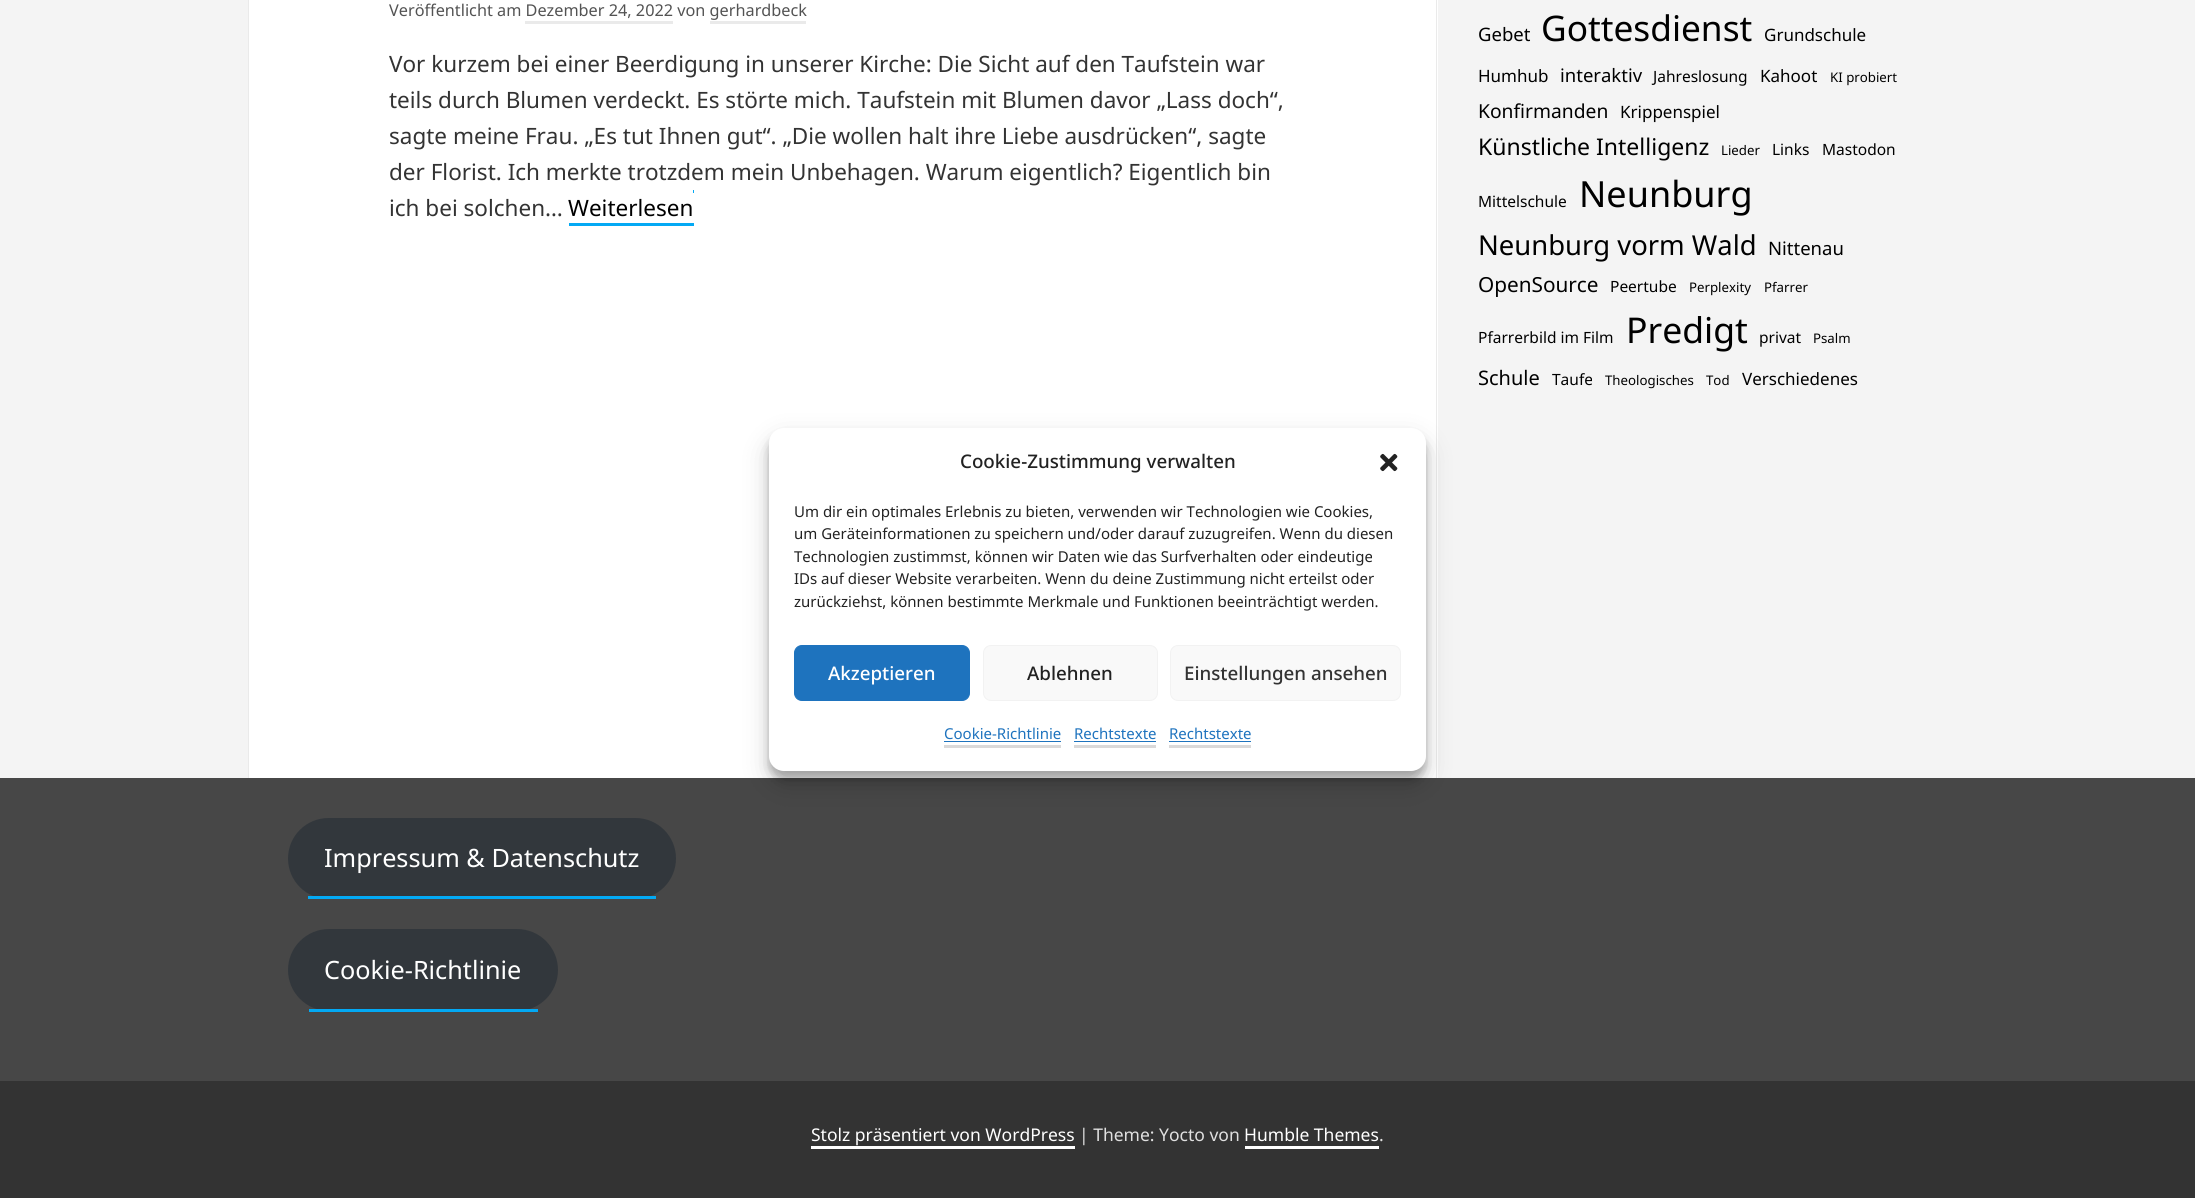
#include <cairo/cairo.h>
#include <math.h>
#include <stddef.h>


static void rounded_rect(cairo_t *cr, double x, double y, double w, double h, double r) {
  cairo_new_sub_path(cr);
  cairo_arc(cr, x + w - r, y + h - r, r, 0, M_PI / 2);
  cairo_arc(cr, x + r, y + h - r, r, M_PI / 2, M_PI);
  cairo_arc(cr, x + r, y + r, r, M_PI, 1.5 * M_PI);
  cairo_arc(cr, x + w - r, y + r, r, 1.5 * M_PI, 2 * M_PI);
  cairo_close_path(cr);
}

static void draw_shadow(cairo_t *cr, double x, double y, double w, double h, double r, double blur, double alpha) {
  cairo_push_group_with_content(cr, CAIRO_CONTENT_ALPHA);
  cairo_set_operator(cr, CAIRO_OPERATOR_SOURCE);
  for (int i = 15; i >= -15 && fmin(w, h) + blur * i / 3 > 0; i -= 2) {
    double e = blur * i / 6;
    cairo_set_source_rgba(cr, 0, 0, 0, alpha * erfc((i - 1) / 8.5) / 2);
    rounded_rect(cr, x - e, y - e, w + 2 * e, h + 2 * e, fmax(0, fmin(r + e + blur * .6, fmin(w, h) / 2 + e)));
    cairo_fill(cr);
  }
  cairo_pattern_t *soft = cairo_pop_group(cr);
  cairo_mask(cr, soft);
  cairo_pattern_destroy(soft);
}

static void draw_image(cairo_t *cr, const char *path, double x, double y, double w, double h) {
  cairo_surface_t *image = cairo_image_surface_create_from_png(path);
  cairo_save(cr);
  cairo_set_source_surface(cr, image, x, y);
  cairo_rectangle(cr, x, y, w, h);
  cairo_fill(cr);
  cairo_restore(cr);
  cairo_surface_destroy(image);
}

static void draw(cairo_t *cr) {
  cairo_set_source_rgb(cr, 244 / 255.0, 244 / 255.0, 244 / 255.0);
  cairo_paint(cr);
  cairo_set_source_rgb(cr, 1, 1, 1);
  cairo_rectangle(cr, 249, 0, 1189, 778);
  cairo_fill(cr);
  cairo_set_source_rgb(cr, 234 / 255.0, 234 / 255.0, 234 / 255.0);
  cairo_rectangle(cr, 1436, 0, 1, 778);
  cairo_fill(cr);
  cairo_rectangle(cr, 248, 0, 1, 778);
  cairo_fill(cr);
  cairo_rectangle(cr, 525, 21, 148, 3);
  cairo_fill(cr);
  cairo_rectangle(cr, 710, 21, 96, 3);
  cairo_fill(cr);
  cairo_set_source_rgb(cr, 3 / 255.0, 169 / 255.0, 244 / 255.0);
  cairo_rectangle(cr, 569, 223, 125, 3);
  cairo_fill(cr);
  cairo_rectangle(cr, 693, 190, 1, 3);
  cairo_fill(cr);
  cairo_set_source_rgb(cr, 71 / 255.0, 71 / 255.0, 71 / 255.0);
  cairo_rectangle(cr, 0, 778, 2195, 303);
  cairo_fill(cr);
  cairo_set_source_rgb(cr, 0, 0, 0);
  draw_shadow(cr, 769, 435, 657, 344, 15, 4, 0.23);
  draw_shadow(cr, 769, 440, 657, 344, 15, 12.5, 0.19);
  cairo_set_source_rgb(cr, 1, 1, 1);
  rounded_rect(cr, 769, 428, 657, 343, 15);
  cairo_fill(cr);
  draw_image(cr, "images/1.png", 1380, 453, 18, 19);
  cairo_set_source_rgb(cr, 30 / 255.0, 115 / 255.0, 190 / 255.0);
  rounded_rect(cr, 794.5, 645.5, 175, 55, 7.5);
  cairo_fill_preserve(cr);
  cairo_set_line_width(cr, 1);
  cairo_stroke(cr);
  cairo_set_source_rgb(cr, 249 / 255.0, 249 / 255.0, 249 / 255.0);
  rounded_rect(cr, 983.5, 645.5, 174, 55, 7.5);
  cairo_fill_preserve(cr);
  cairo_set_source_rgb(cr, 242 / 255.0, 242 / 255.0, 242 / 255.0);
  cairo_stroke(cr);
  cairo_set_source_rgb(cr, 249 / 255.0, 249 / 255.0, 249 / 255.0);
  rounded_rect(cr, 1170.5, 645.5, 230, 55, 7.5);
  cairo_fill_preserve(cr);
  cairo_set_source_rgb(cr, 242 / 255.0, 242 / 255.0, 242 / 255.0);
  cairo_stroke(cr);
  cairo_set_source_rgb(cr, 218 / 255.0, 217 / 255.0, 217 / 255.0);
  cairo_rectangle(cr, 944, 745, 117, 3);
  cairo_fill(cr);
  cairo_set_source_rgb(cr, 30 / 255.0, 115 / 255.0, 190 / 255.0);
  cairo_rectangle(cr, 944, 741, 117, 1);
  cairo_fill(cr);
  cairo_set_source_rgb(cr, 218 / 255.0, 217 / 255.0, 217 / 255.0);
  cairo_rectangle(cr, 1074, 745, 82, 3);
  cairo_fill(cr);
  cairo_set_source_rgb(cr, 30 / 255.0, 115 / 255.0, 190 / 255.0);
  cairo_rectangle(cr, 1074, 741, 82, 1);
  cairo_fill(cr);
  cairo_set_source_rgb(cr, 218 / 255.0, 217 / 255.0, 217 / 255.0);
  cairo_rectangle(cr, 1169, 745, 82, 3);
  cairo_fill(cr);
  cairo_set_source_rgb(cr, 30 / 255.0, 115 / 255.0, 190 / 255.0);
  cairo_rectangle(cr, 1169, 741, 82, 1);
  cairo_fill(cr);
  cairo_set_source_rgb(cr, 50 / 255.0, 55 / 255.0, 60 / 255.0);
  rounded_rect(cr, 288, 818, 388, 81, 40.5);
  cairo_fill(cr);
  cairo_set_source_rgb(cr, 3 / 255.0, 169 / 255.0, 244 / 255.0);
  cairo_rectangle(cr, 308, 896, 348, 3);
  cairo_fill(cr);
  cairo_set_source_rgb(cr, 50 / 255.0, 55 / 255.0, 60 / 255.0);
  rounded_rect(cr, 288, 929, 270, 82, 41);
  cairo_fill(cr);
  cairo_set_source_rgb(cr, 3 / 255.0, 169 / 255.0, 244 / 255.0);
  cairo_rectangle(cr, 309, 1009, 229, 3);
  cairo_fill(cr);
  cairo_set_source_rgb(cr, 51 / 255.0, 51 / 255.0, 51 / 255.0);
  cairo_rectangle(cr, 0, 1081, 2195, 117);
  cairo_fill(cr);
  cairo_set_source_rgb(cr, 1, 1, 1);
  cairo_rectangle(cr, 811, 1146, 264, 3);
  cairo_fill(cr);
  cairo_rectangle(cr, 1245, 1146, 134, 3);
  cairo_fill(cr);
  cairo_select_font_face(cr, "Noto Sans", CAIRO_FONT_SLANT_NORMAL, CAIRO_FONT_WEIGHT_NORMAL);
  cairo_set_font_size(cr, 16.25);
  cairo_set_source_rgb(cr, 83 / 255.0, 83 / 255.0, 83 / 255.0);
  cairo_move_to(cr, 389, 16);
  cairo_show_text(cr, "Veröffentlicht am Dezember 24, 2022 von gerhardbeck");
  cairo_set_font_size(cr, 22.5);
  cairo_set_source_rgb(cr, 51 / 255.0, 51 / 255.0, 51 / 255.0);
  cairo_move_to(cr, 389, 72);
  cairo_show_text(cr, "Vor kurzem bei einer Beerdigung in unserer Kirche: Die Sicht auf den Taufstein war");
  cairo_move_to(cr, 389, 108);
  cairo_show_text(cr, "teils durch Blumen verdeckt. Es störte mich. Taufstein mit Blumen davor „Lass doch“,");
  cairo_move_to(cr, 389, 144);
  cairo_show_text(cr, "sagte meine Frau. „Es tut Ihnen gut“. „Die wollen halt ihre Liebe ausdrücken“, sagte");
  cairo_move_to(cr, 389, 180);
  cairo_show_text(cr, "der Florist. Ich merkte trotzdem mein Unbehagen. Warum eigentlich? Eigentlich bin");
  cairo_move_to(cr, 389, 216);
  cairo_show_text(cr, "ich bei solchen…");
  cairo_set_source_rgb(cr, 0, 0, 0);
  cairo_move_to(cr, 568, 216);
  cairo_show_text(cr, "Weiterlesen");
  cairo_set_font_size(cr, 18.5);
  cairo_move_to(cr, 1478, 41);
  cairo_show_text(cr, "Gebet");
  cairo_set_font_size(cr, 35.25);
  cairo_move_to(cr, 1541, 41);
  cairo_show_text(cr, "Gottesdienst");
  cairo_set_font_size(cr, 17);
  cairo_move_to(cr, 1764, 41);
  cairo_show_text(cr, "Grundschule");
  cairo_move_to(cr, 1478, 82);
  cairo_show_text(cr, "Humhub");
  cairo_set_font_size(cr, 18.5);
  cairo_move_to(cr, 1560, 82);
  cairo_show_text(cr, "interaktiv");
  cairo_set_font_size(cr, 15.5);
  cairo_move_to(cr, 1653, 82);
  cairo_show_text(cr, "Jahreslosung");
  cairo_set_font_size(cr, 17);
  cairo_move_to(cr, 1760, 82);
  cairo_show_text(cr, "Kahoot");
  cairo_set_font_size(cr, 13.25);
  cairo_move_to(cr, 1830, 82);
  cairo_show_text(cr, "KI probiert");
  cairo_set_font_size(cr, 19.25);
  cairo_move_to(cr, 1478, 118);
  cairo_show_text(cr, "Konfirmanden");
  cairo_set_font_size(cr, 17);
  cairo_move_to(cr, 1620, 118);
  cairo_show_text(cr, "Krippenspiel");
  cairo_set_font_size(cr, 23);
  cairo_move_to(cr, 1478, 155);
  cairo_show_text(cr, "Künstliche Intelligenz");
  cairo_set_font_size(cr, 13.25);
  cairo_move_to(cr, 1721, 155);
  cairo_show_text(cr, "Lieder");
  cairo_set_font_size(cr, 15.5);
  cairo_move_to(cr, 1772, 155);
  cairo_show_text(cr, "Links");
  cairo_move_to(cr, 1822, 155);
  cairo_show_text(cr, "Mastodon");
  cairo_move_to(cr, 1478, 207);
  cairo_show_text(cr, "Mittelschule");
  cairo_set_font_size(cr, 36);
  cairo_move_to(cr, 1579, 207);
  cairo_show_text(cr, "Neunburg");
  cairo_set_font_size(cr, 27.4);
  cairo_move_to(cr, 1478, 255);
  cairo_show_text(cr, "Neunburg vorm Wald");
  cairo_set_font_size(cr, 18.5);
  cairo_move_to(cr, 1768, 255);
  cairo_show_text(cr, "Nittenau");
  cairo_set_font_size(cr, 20.75);
  cairo_move_to(cr, 1478, 292);
  cairo_show_text(cr, "OpenSource");
  cairo_set_font_size(cr, 15.5);
  cairo_move_to(cr, 1610, 292);
  cairo_show_text(cr, "Peertube");
  cairo_set_font_size(cr, 13.25);
  cairo_move_to(cr, 1689, 292);
  cairo_show_text(cr, "Perplexity");
  cairo_move_to(cr, 1764, 292);
  cairo_show_text(cr, "Pfarrer");
  cairo_set_font_size(cr, 15.5);
  cairo_move_to(cr, 1478, 343);
  cairo_show_text(cr, "Pfarrerbild im Film");
  cairo_set_font_size(cr, 35.5);
  cairo_move_to(cr, 1626, 343);
  cairo_show_text(cr, "Predigt");
  cairo_set_font_size(cr, 15.5);
  cairo_move_to(cr, 1759, 343);
  cairo_show_text(cr, "privat");
  cairo_set_font_size(cr, 13.25);
  cairo_move_to(cr, 1813, 343);
  cairo_show_text(cr, "Psalm");
  cairo_set_font_size(cr, 20);
  cairo_move_to(cr, 1478, 385);
  cairo_show_text(cr, "Schule");
  cairo_set_font_size(cr, 15.5);
  cairo_move_to(cr, 1552, 385);
  cairo_show_text(cr, "Taufe");
  cairo_set_font_size(cr, 13.25);
  cairo_move_to(cr, 1605, 385);
  cairo_show_text(cr, "Theologisches");
  cairo_move_to(cr, 1706, 385);
  cairo_show_text(cr, "Tod");
  cairo_set_font_size(cr, 17);
  cairo_move_to(cr, 1742, 385);
  cairo_show_text(cr, "Verschiedenes");
  cairo_select_font_face(cr, "Noto Sans Medium", CAIRO_FONT_SLANT_NORMAL, CAIRO_FONT_WEIGHT_NORMAL);
  cairo_set_font_size(cr, 18.75);
  cairo_set_source_rgb(cr, 34 / 255.0, 34 / 255.0, 34 / 255.0);
  cairo_move_to(cr, 960, 468);
  cairo_show_text(cr, "Cookie-Zustimmung verwalten");
  cairo_select_font_face(cr, "Noto Sans", CAIRO_FONT_SLANT_NORMAL, CAIRO_FONT_WEIGHT_NORMAL);
  cairo_set_font_size(cr, 15);
  cairo_move_to(cr, 794, 517);
  cairo_show_text(cr, "Um dir ein optimales Erlebnis zu bieten, verwenden wir Technologien wie Cookies,");
  cairo_move_to(cr, 794, 539);
  cairo_show_text(cr, "um Geräteinformationen zu speichern und/oder darauf zuzugreifen. Wenn du diesen");
  cairo_move_to(cr, 794, 562);
  cairo_show_text(cr, "Technologien zustimmst, können wir Daten wie das Surfverhalten oder eindeutige");
  cairo_move_to(cr, 794, 584);
  cairo_show_text(cr, "IDs auf dieser Website verarbeiten. Wenn du deine Zustimmung nicht erteilst oder");
  cairo_move_to(cr, 794, 607);
  cairo_show_text(cr, "zurückziehst, können bestimmte Merkmale und Funktionen beeinträchtigt werden.");
  cairo_select_font_face(cr, "Noto Sans Medium", CAIRO_FONT_SLANT_NORMAL, CAIRO_FONT_WEIGHT_NORMAL);
  cairo_set_font_size(cr, 18.75);
  cairo_set_source_rgb(cr, 1, 1, 1);
  cairo_move_to(cr, 828, 680);
  cairo_show_text(cr, "Akzeptieren");
  cairo_set_source_rgb(cr, 34 / 255.0, 34 / 255.0, 34 / 255.0);
  cairo_move_to(cr, 1027, 680);
  cairo_show_text(cr, "Ablehnen");
  cairo_set_source_rgb(cr, 51 / 255.0, 51 / 255.0, 51 / 255.0);
  cairo_move_to(cr, 1184, 680);
  cairo_show_text(cr, "Einstellungen ansehen");
  cairo_select_font_face(cr, "Noto Sans", CAIRO_FONT_SLANT_NORMAL, CAIRO_FONT_WEIGHT_NORMAL);
  cairo_set_font_size(cr, 15);
  cairo_set_source_rgb(cr, 30 / 255.0, 115 / 255.0, 190 / 255.0);
  cairo_move_to(cr, 944, 739);
  cairo_show_text(cr, "Cookie-Richtlinie");
  cairo_move_to(cr, 1074, 739);
  cairo_show_text(cr, "Rechtstexte");
  cairo_move_to(cr, 1169, 739);
  cairo_show_text(cr, "Rechtstexte");
  cairo_set_font_size(cr, 25.25);
  cairo_set_source_rgb(cr, 1, 1, 1);
  cairo_move_to(cr, 324, 867);
  cairo_show_text(cr, "Impressum & Datenschutz");
  cairo_move_to(cr, 324, 979);
  cairo_show_text(cr, "Cookie-Richtlinie");
  cairo_set_font_size(cr, 17.5);
  cairo_move_to(cr, 811, 1141);
  cairo_show_text(cr, "Stolz präsentiert von WordPress");
  cairo_set_source_rgb(cr, 224 / 255.0, 224 / 255.0, 224 / 255.0);
  cairo_move_to(cr, 1079, 1141);
  cairo_show_text(cr, "| Theme: Yocto von");
  cairo_set_source_rgb(cr, 1, 1, 1);
  cairo_move_to(cr, 1244, 1141);
  cairo_show_text(cr, "Humble Themes");
  cairo_set_source_rgb(cr, 224 / 255.0, 224 / 255.0, 224 / 255.0);
  cairo_move_to(cr, 1379, 1141);
  cairo_show_text(cr, ".");
}

int main(void) {
  cairo_surface_t *surface = cairo_image_surface_create(CAIRO_FORMAT_RGB24, 2195, 1198);
  cairo_t *cr = cairo_create(surface);
  cairo_font_options_t *options = cairo_font_options_create();
  cairo_font_options_set_hint_metrics(options, CAIRO_HINT_METRICS_OFF);
  cairo_font_options_set_hint_style(options, CAIRO_HINT_STYLE_NONE);
  cairo_set_font_options(cr, options);
  cairo_set_miter_limit(cr, 4);
  draw(cr);
  cairo_surface_write_to_png(surface, "out.png");
  cairo_font_options_destroy(options);
  cairo_destroy(cr);
  cairo_surface_destroy(surface);
  return 0;
}
